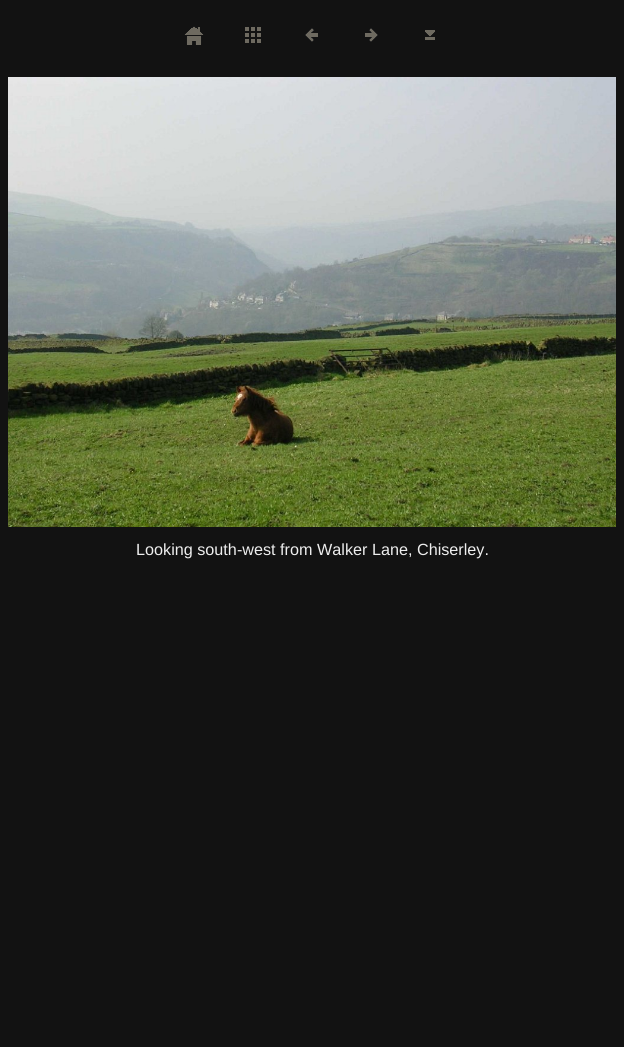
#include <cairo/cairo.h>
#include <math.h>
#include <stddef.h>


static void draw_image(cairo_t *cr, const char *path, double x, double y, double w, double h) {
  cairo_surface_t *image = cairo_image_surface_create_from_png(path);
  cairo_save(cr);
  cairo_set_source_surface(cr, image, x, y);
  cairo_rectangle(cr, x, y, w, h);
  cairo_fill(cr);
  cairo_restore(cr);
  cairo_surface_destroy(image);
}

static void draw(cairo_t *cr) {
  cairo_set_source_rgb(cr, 18 / 255.0, 18 / 255.0, 18 / 255.0);
  cairo_paint(cr);
  draw_image(cr, "images/1.png", 184, 26, 20, 19);
  draw_image(cr, "images/2.png", 245, 27, 16, 16);
  draw_image(cr, "images/3.png", 305, 28, 13, 14);
  draw_image(cr, "images/4.png", 365, 28, 13, 14);
  draw_image(cr, "images/5.png", 425, 30, 10, 10);
  draw_image(cr, "images/6.png", 8, 77, 608, 450);
  cairo_select_font_face(cr, "Liberation Sans", CAIRO_FONT_SLANT_NORMAL, CAIRO_FONT_WEIGHT_NORMAL);
  cairo_set_font_size(cr, 16.2);
  cairo_set_source_rgb(cr, 238 / 255.0, 238 / 255.0, 238 / 255.0);
  cairo_move_to(cr, 136, 555);
  cairo_show_text(cr, "Looking south-west from Walker Lane, Chiserley.");
}

int main(void) {
  cairo_surface_t *surface = cairo_image_surface_create(CAIRO_FORMAT_RGB24, 624, 1047);
  cairo_t *cr = cairo_create(surface);
  cairo_font_options_t *options = cairo_font_options_create();
  cairo_font_options_set_hint_metrics(options, CAIRO_HINT_METRICS_OFF);
  cairo_font_options_set_hint_style(options, CAIRO_HINT_STYLE_NONE);
  cairo_set_font_options(cr, options);
  cairo_set_miter_limit(cr, 4);
  draw(cr);
  cairo_surface_write_to_png(surface, "out.png");
  cairo_font_options_destroy(options);
  cairo_destroy(cr);
  cairo_surface_destroy(surface);
  return 0;
}
